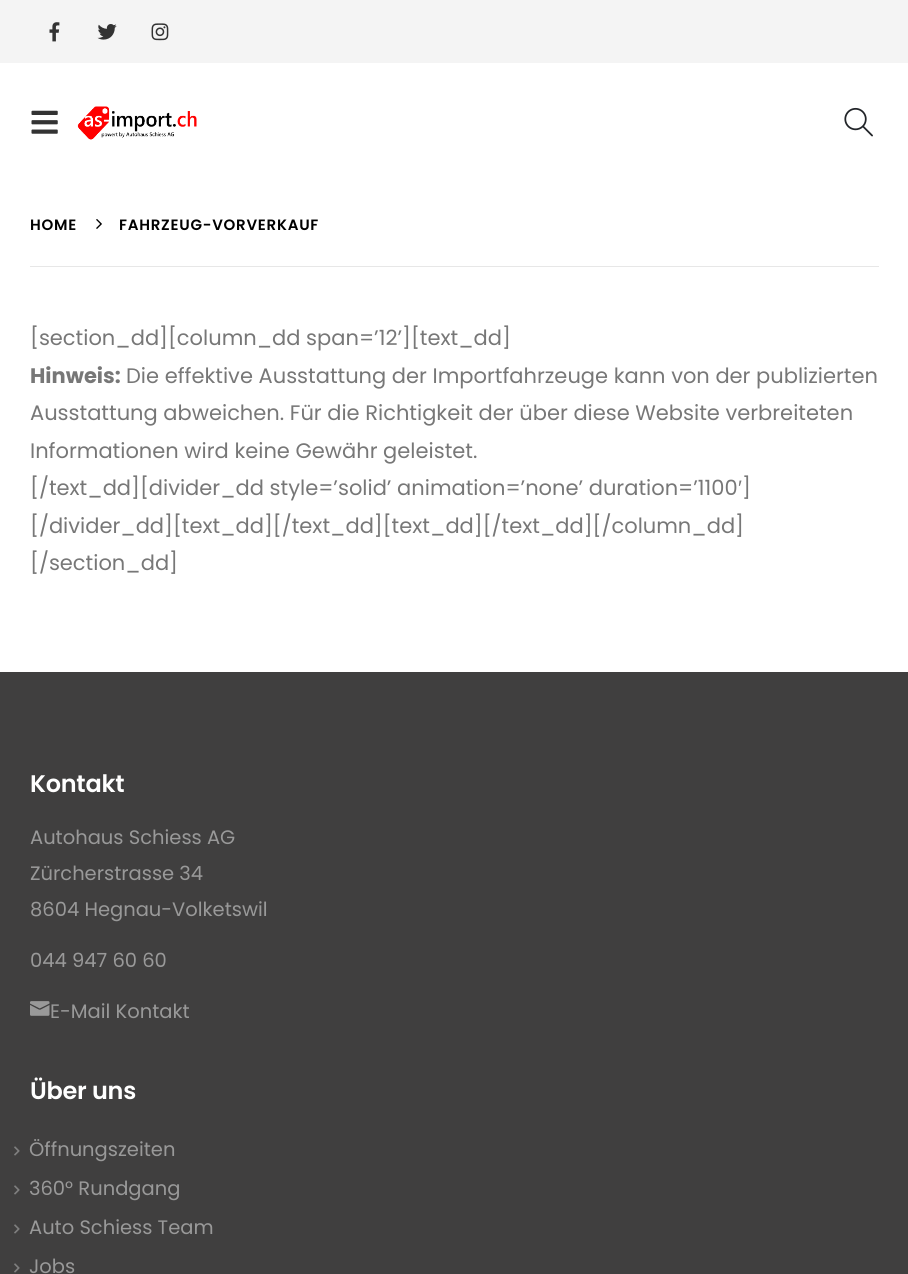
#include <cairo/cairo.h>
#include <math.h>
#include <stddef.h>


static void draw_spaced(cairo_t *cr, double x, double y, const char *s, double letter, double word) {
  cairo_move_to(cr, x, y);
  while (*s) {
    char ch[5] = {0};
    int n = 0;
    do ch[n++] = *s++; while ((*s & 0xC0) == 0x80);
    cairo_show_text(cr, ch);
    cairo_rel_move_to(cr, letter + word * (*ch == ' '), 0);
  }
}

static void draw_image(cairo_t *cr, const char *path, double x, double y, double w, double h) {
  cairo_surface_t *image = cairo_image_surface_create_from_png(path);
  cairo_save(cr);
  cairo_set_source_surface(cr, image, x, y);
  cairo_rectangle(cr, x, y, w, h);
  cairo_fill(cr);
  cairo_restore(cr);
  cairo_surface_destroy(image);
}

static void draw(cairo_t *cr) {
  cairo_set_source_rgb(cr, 1, 1, 1);
  cairo_paint(cr);
  cairo_set_source_rgb(cr, 244 / 255.0, 244 / 255.0, 244 / 255.0);
  cairo_rectangle(cr, 0, 0, 908, 63);
  cairo_fill(cr);
  draw_image(cr, "images/1.png", 49, 22, 11, 20);
  draw_image(cr, "images/2.png", 97, 24, 20, 16);
  draw_image(cr, "images/3.png", 151, 23, 18, 18);
  draw_image(cr, "images/4.png", 31, 110, 27, 24);
  draw_image(cr, "images/5.png", 77, 106, 120, 34);
  draw_image(cr, "images/6.png", 844, 107, 29, 30);
  cairo_set_source_rgb(cr, 231 / 255.0, 231 / 255.0, 231 / 255.0);
  cairo_rectangle(cr, 30, 266, 849, 1);
  cairo_fill(cr);
  draw_image(cr, "images/7.png", 96, 219, 6, 10);
  cairo_set_source_rgb(cr, 64 / 255.0, 63 / 255.0, 63 / 255.0);
  cairo_rectangle(cr, 0, 672, 908, 602);
  cairo_fill(cr);
  draw_image(cr, "images/8.png", 30, 1001, 20, 15);
  draw_image(cr, "images/9.png", 14, 1146, 6, 10);
  draw_image(cr, "images/9.png", 14, 1185, 6, 10);
  draw_image(cr, "images/9.png", 14, 1224, 6, 10);
  draw_image(cr, "images/9.png", 14, 1263, 6, 10);
  cairo_select_font_face(cr, "Poppins SemiBold", CAIRO_FONT_SLANT_NORMAL, CAIRO_FONT_WEIGHT_NORMAL);
  cairo_set_font_size(cr, 15);
  cairo_set_source_rgb(cr, 0, 0, 0);
  draw_spaced(cr, 30, 230, "HOME", 0.75, 0);
  draw_spaced(cr, 119, 230, "FAHRZEUG-VORVERKAUF", 0.75, 0);
  cairo_select_font_face(cr, "Poppins", CAIRO_FONT_SLANT_NORMAL, CAIRO_FONT_WEIGHT_NORMAL);
  cairo_set_font_size(cr, 21);
  cairo_set_source_rgb(cr, 119 / 255.0, 119 / 255.0, 119 / 255.0);
  cairo_move_to(cr, 30, 345);
  cairo_show_text(cr, "[section_dd][column_dd span=’12’][text_dd]");
  cairo_select_font_face(cr, "Poppins", CAIRO_FONT_SLANT_NORMAL, CAIRO_FONT_WEIGHT_BOLD);
  cairo_move_to(cr, 30, 383);
  cairo_show_text(cr, "Hinweis:");
  cairo_select_font_face(cr, "Poppins", CAIRO_FONT_SLANT_NORMAL, CAIRO_FONT_WEIGHT_NORMAL);
  cairo_move_to(cr, 126, 383);
  cairo_show_text(cr, "Die effektive Ausstattung der Importfahrzeuge kann von der publizierten");
  cairo_move_to(cr, 30, 420);
  cairo_show_text(cr, "Ausstattung abweichen. Für die Richtigkeit der über diese Website verbreiteten");
  cairo_move_to(cr, 30, 458);
  cairo_show_text(cr, "Informationen wird keine Gewähr geleistet.");
  cairo_move_to(cr, 30, 495);
  cairo_show_text(cr, "[/text_dd][divider_dd style=’solid’ animation=’none’ duration=’1100");
  cairo_select_font_face(cr, "Liberation Sans", CAIRO_FONT_SLANT_NORMAL, CAIRO_FONT_WEIGHT_NORMAL);
  cairo_move_to(cr, 738, 495);
  cairo_show_text(cr, "′");
  cairo_select_font_face(cr, "Poppins", CAIRO_FONT_SLANT_NORMAL, CAIRO_FONT_WEIGHT_NORMAL);
  cairo_move_to(cr, 742, 495);
  cairo_show_text(cr, "]");
  cairo_move_to(cr, 30, 533);
  cairo_show_text(cr, "[/divider_dd][text_dd][/text_dd][text_dd][/text_dd][/column_dd]");
  cairo_move_to(cr, 30, 570);
  cairo_show_text(cr, "[/section_dd]");
  cairo_select_font_face(cr, "Poppins SemiBold", CAIRO_FONT_SLANT_NORMAL, CAIRO_FONT_WEIGHT_NORMAL);
  cairo_set_font_size(cr, 24);
  cairo_set_source_rgb(cr, 1, 1, 1);
  draw_spaced(cr, 30, 792, "Kontakt", -0.25, 0);
  cairo_select_font_face(cr, "Poppins", CAIRO_FONT_SLANT_NORMAL, CAIRO_FONT_WEIGHT_NORMAL);
  cairo_set_font_size(cr, 19.5);
  cairo_set_source_rgb(cr, 153 / 255.0, 153 / 255.0, 153 / 255.0);
  cairo_move_to(cr, 30, 844);
  cairo_show_text(cr, "Autohaus Schiess AG");
  cairo_move_to(cr, 30, 880);
  cairo_show_text(cr, "Zürcherstrasse 34");
  cairo_move_to(cr, 30, 916);
  cairo_show_text(cr, "8604 Hegnau-Volketswil");
  cairo_move_to(cr, 30, 967);
  cairo_show_text(cr, "044 947 60 60");
  cairo_move_to(cr, 50, 1018);
  cairo_show_text(cr, "E-Mail Kontakt");
  cairo_select_font_face(cr, "Poppins SemiBold", CAIRO_FONT_SLANT_NORMAL, CAIRO_FONT_WEIGHT_NORMAL);
  cairo_set_font_size(cr, 24);
  cairo_set_source_rgb(cr, 1, 1, 1);
  draw_spaced(cr, 30, 1099, "Über uns", -0.25, 0);
  cairo_select_font_face(cr, "Poppins", CAIRO_FONT_SLANT_NORMAL, CAIRO_FONT_WEIGHT_NORMAL);
  cairo_set_font_size(cr, 19.5);
  cairo_set_source_rgb(cr, 153 / 255.0, 153 / 255.0, 153 / 255.0);
  cairo_move_to(cr, 29, 1156);
  cairo_show_text(cr, "Öffnungszeiten");
  cairo_move_to(cr, 29, 1195);
  cairo_show_text(cr, "360° Rundgang");
  cairo_move_to(cr, 29, 1234);
  cairo_show_text(cr, "Auto Schiess Team");
  cairo_move_to(cr, 29, 1273);
  cairo_show_text(cr, "Jobs");
}

int main(void) {
  cairo_surface_t *surface = cairo_image_surface_create(CAIRO_FORMAT_RGB24, 908, 1274);
  cairo_t *cr = cairo_create(surface);
  cairo_font_options_t *options = cairo_font_options_create();
  cairo_font_options_set_hint_metrics(options, CAIRO_HINT_METRICS_OFF);
  cairo_font_options_set_hint_style(options, CAIRO_HINT_STYLE_NONE);
  cairo_set_font_options(cr, options);
  cairo_set_miter_limit(cr, 4);
  draw(cr);
  cairo_surface_write_to_png(surface, "out.png");
  cairo_font_options_destroy(options);
  cairo_destroy(cr);
  cairo_surface_destroy(surface);
  return 0;
}
